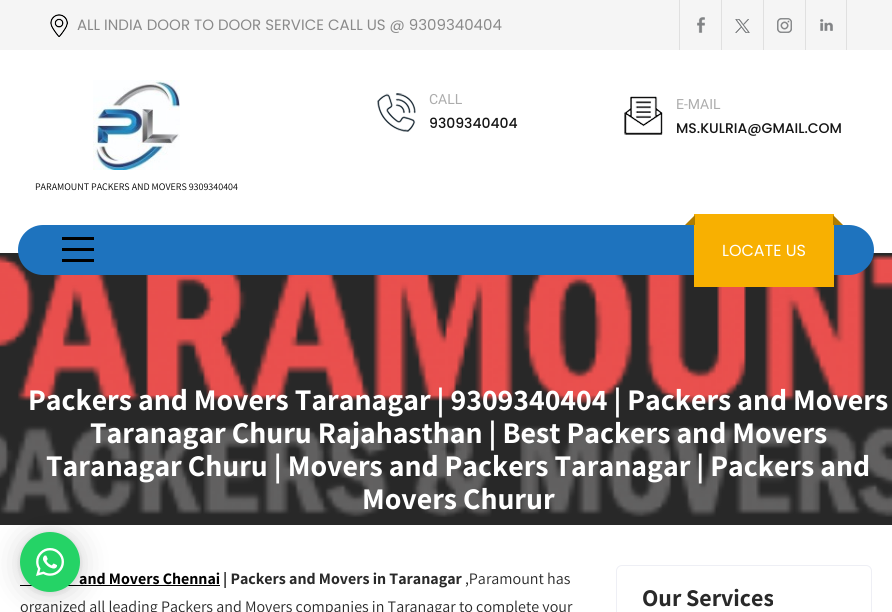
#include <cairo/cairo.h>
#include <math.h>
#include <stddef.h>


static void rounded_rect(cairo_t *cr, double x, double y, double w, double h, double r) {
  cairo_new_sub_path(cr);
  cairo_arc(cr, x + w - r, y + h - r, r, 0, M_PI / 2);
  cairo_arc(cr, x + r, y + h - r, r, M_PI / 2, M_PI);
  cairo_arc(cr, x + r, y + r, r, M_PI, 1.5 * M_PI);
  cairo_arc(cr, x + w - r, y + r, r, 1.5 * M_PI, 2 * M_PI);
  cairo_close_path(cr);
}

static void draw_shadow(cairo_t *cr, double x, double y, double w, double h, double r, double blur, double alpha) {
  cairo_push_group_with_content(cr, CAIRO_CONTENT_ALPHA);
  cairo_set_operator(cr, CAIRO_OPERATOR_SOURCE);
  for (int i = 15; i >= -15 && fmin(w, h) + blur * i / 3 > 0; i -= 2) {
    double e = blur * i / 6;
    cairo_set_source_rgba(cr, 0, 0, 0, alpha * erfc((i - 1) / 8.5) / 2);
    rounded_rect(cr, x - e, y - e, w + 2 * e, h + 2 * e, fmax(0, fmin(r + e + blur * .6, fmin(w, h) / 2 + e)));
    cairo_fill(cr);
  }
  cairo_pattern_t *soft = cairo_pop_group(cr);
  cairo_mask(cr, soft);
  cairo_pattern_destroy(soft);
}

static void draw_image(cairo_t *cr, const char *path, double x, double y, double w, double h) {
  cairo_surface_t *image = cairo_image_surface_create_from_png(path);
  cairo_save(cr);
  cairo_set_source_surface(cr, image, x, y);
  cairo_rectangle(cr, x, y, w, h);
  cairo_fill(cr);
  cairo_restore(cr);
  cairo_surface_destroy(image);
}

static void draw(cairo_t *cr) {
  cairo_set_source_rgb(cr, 1, 1, 1);
  cairo_paint(cr);
  cairo_set_source_rgb(cr, 245 / 255.0, 245 / 255.0, 245 / 255.0);
  cairo_rectangle(cr, 0, 0, 892, 50);
  cairo_fill(cr);
  draw_image(cr, "images/1.png", 50, 14, 18, 23);
  draw_image(cr, "images/2.png", 697, 17, 8, 16);
  cairo_set_source_rgb(cr, 224 / 255.0, 224 / 255.0, 224 / 255.0);
  cairo_rectangle(cr, 679, 0, 1, 50);
  cairo_fill(cr);
  draw_image(cr, "images/3.png", 735, 19, 15, 14);
  cairo_rectangle(cr, 721, 0, 1, 50);
  cairo_fill(cr);
  draw_image(cr, "images/4.png", 777, 18, 15, 15);
  cairo_rectangle(cr, 763, 0, 1, 50);
  cairo_fill(cr);
  draw_image(cr, "images/5.png", 820, 19, 13, 12);
  cairo_rectangle(cr, 846, 0, 1, 50);
  cairo_fill(cr);
  cairo_rectangle(cr, 805, 0, 1, 50);
  cairo_fill(cr);
  draw_image(cr, "images/6.png", 377, 93, 39, 39);
  draw_image(cr, "images/7.png", 624, 96, 39, 39);
  draw_image(cr, "images/8.png", 93, 80, 87, 90);
  cairo_set_source_rgb(cr, 40 / 255.0, 40 / 255.0, 40 / 255.0);
  cairo_rectangle(cr, 0, 253, 892, 272);
  cairo_fill(cr);
  draw_image(cr, "images/9.png", 0, 255, 892, 262);
  cairo_set_source_rgb(cr, 30 / 255.0, 115 / 255.0, 190 / 255.0);
  rounded_rect(cr, 18, 225, 856, 50, 25);
  cairo_fill(cr);
  cairo_set_source_rgb(cr, 0, 0, 0);
  cairo_rectangle(cr, 62, 237, 32, 3);
  cairo_fill(cr);
  cairo_rectangle(cr, 62, 248, 32, 3);
  cairo_fill(cr);
  cairo_rectangle(cr, 62, 259, 32, 3);
  cairo_fill(cr);
  cairo_set_source_rgb(cr, 248 / 255.0, 176 / 255.0, 1 / 255.0);
  cairo_rectangle(cr, 694, 214, 140, 73);
  cairo_fill(cr);
  cairo_set_source_rgb(cr, 176 / 255.0, 125 / 255.0, 1 / 255.0);
  cairo_new_path(cr);
  cairo_move_to(cr, 695, 225);
  cairo_line_to(cr, 685, 225);
  cairo_line_to(cr, 695, 215);
  cairo_close_path(cr);
  cairo_fill(cr);
  cairo_new_path(cr);
  cairo_move_to(cr, 843, 225);
  cairo_line_to(cr, 833, 225);
  cairo_line_to(cr, 833, 215);
  cairo_close_path(cr);
  cairo_fill(cr);
  cairo_set_source_rgb(cr, 0, 0, 0);
  cairo_rectangle(cr, 20, 585, 200, 1);
  cairo_fill(cr);
  rounded_rect(cr, 616.5, 565.5, 255, 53, 5.5);
  cairo_set_source_rgb(cr, 238 / 255.0, 239 / 255.0, 245 / 255.0);
  cairo_set_line_width(cr, 1);
  cairo_stroke(cr);
  cairo_set_source_rgb(cr, 0, 0, 0);
  draw_shadow(cr, 20, 534, 60, 60, 30, 16, 0.16);
  draw_shadow(cr, 20, 533, 60, 60, 30, 3, 0.1);
  cairo_select_font_face(cr, "Poppins", CAIRO_FONT_SLANT_NORMAL, CAIRO_FONT_WEIGHT_NORMAL);
  cairo_set_font_size(cr, 15);
  cairo_set_source_rgb(cr, 138 / 255.0, 138 / 255.0, 138 / 255.0);
  cairo_move_to(cr, 77, 30);
  cairo_show_text(cr, "ALL INDIA DOOR TO DOOR SERVICE CALL US @ 9309340404");
  cairo_select_font_face(cr, "Roboto", CAIRO_FONT_SLANT_NORMAL, CAIRO_FONT_WEIGHT_NORMAL);
  cairo_set_font_size(cr, 14);
  cairo_set_source_rgb(cr, 172 / 255.0, 172 / 255.0, 172 / 255.0);
  cairo_move_to(cr, 429, 104);
  cairo_show_text(cr, "CALL");
  cairo_select_font_face(cr, "Poppins Medium", CAIRO_FONT_SLANT_NORMAL, CAIRO_FONT_WEIGHT_NORMAL);
  cairo_set_source_rgb(cr, 21 / 255.0, 21 / 255.0, 21 / 255.0);
  cairo_move_to(cr, 429, 128);
  cairo_show_text(cr, "9309340404");
  cairo_select_font_face(cr, "Roboto", CAIRO_FONT_SLANT_NORMAL, CAIRO_FONT_WEIGHT_NORMAL);
  cairo_set_source_rgb(cr, 172 / 255.0, 172 / 255.0, 172 / 255.0);
  cairo_move_to(cr, 676, 109);
  cairo_show_text(cr, "E-MAIL");
  cairo_select_font_face(cr, "Poppins Medium", CAIRO_FONT_SLANT_NORMAL, CAIRO_FONT_WEIGHT_NORMAL);
  cairo_set_source_rgb(cr, 21 / 255.0, 21 / 255.0, 21 / 255.0);
  cairo_move_to(cr, 676, 133);
  cairo_show_text(cr, "MS.KULRIA@GMAIL.COM");
  cairo_select_font_face(cr, "Assistant", CAIRO_FONT_SLANT_NORMAL, CAIRO_FONT_WEIGHT_NORMAL);
  cairo_set_font_size(cr, 10);
  cairo_set_source_rgb(cr, 0, 0, 0);
  cairo_move_to(cr, 35, 190);
  cairo_show_text(cr, "PARAMOUNT PACKERS AND MOVERS 9309340404");
  cairo_select_font_face(cr, "Poppins", CAIRO_FONT_SLANT_NORMAL, CAIRO_FONT_WEIGHT_NORMAL);
  cairo_set_font_size(cr, 16);
  cairo_set_source_rgb(cr, 1, 1, 1);
  cairo_move_to(cr, 722, 256);
  cairo_show_text(cr, "LOCATE US");
  cairo_select_font_face(cr, "Assistant", CAIRO_FONT_SLANT_NORMAL, CAIRO_FONT_WEIGHT_BOLD);
  cairo_set_font_size(cr, 30);
  cairo_move_to(cr, 28, 410);
  cairo_show_text(cr, "Packers and Movers Taranagar | 9309340404 | Packers and Movers");
  cairo_move_to(cr, 90, 443);
  cairo_show_text(cr, "Taranagar Churu Rajahasthan | Best Packers and Movers");
  cairo_move_to(cr, 46, 476);
  cairo_show_text(cr, "Taranagar Churu | Movers and Packers Taranagar | Packers and");
  cairo_move_to(cr, 362, 509);
  cairo_show_text(cr, "Movers Churur");
  cairo_set_font_size(cr, 16);
  cairo_set_source_rgb(cr, 0, 0, 0);
  cairo_move_to(cr, 79, 584);
  cairo_show_text(cr, "and Movers Chennai");
  cairo_set_source_rgb(cr, 41 / 255.0, 41 / 255.0, 41 / 255.0);
  cairo_move_to(cr, 223, 584);
  cairo_show_text(cr, "| Packers and Movers in Taranagar");
  cairo_select_font_face(cr, "Assistant", CAIRO_FONT_SLANT_NORMAL, CAIRO_FONT_WEIGHT_NORMAL);
  cairo_move_to(cr, 465, 584);
  cairo_show_text(cr, ",Paramount has");
  cairo_move_to(cr, 20, 612);
  cairo_show_text(cr, "organized all leading Packers and Movers companies in Taranagar to complete your");
  cairo_select_font_face(cr, "Assistant", CAIRO_FONT_SLANT_NORMAL, CAIRO_FONT_WEIGHT_BOLD);
  cairo_set_font_size(cr, 24);
  cairo_move_to(cr, 642, 606);
  cairo_show_text(cr, "Our Services");
  cairo_set_source_rgb(cr, 37 / 255.0, 211 / 255.0, 102 / 255.0);
  cairo_new_path(cr);
  cairo_arc(cr, 50, 562, 30, 0, 2 * M_PI);
  cairo_fill(cr);
  draw_image(cr, "images/10.png", 36, 548, 28, 28);
}

int main(void) {
  cairo_surface_t *surface = cairo_image_surface_create(CAIRO_FORMAT_RGB24, 892, 612);
  cairo_t *cr = cairo_create(surface);
  cairo_font_options_t *options = cairo_font_options_create();
  cairo_font_options_set_hint_metrics(options, CAIRO_HINT_METRICS_OFF);
  cairo_font_options_set_hint_style(options, CAIRO_HINT_STYLE_NONE);
  cairo_set_font_options(cr, options);
  cairo_set_miter_limit(cr, 4);
  draw(cr);
  cairo_surface_write_to_png(surface, "out.png");
  cairo_font_options_destroy(options);
  cairo_destroy(cr);
  cairo_surface_destroy(surface);
  return 0;
}
